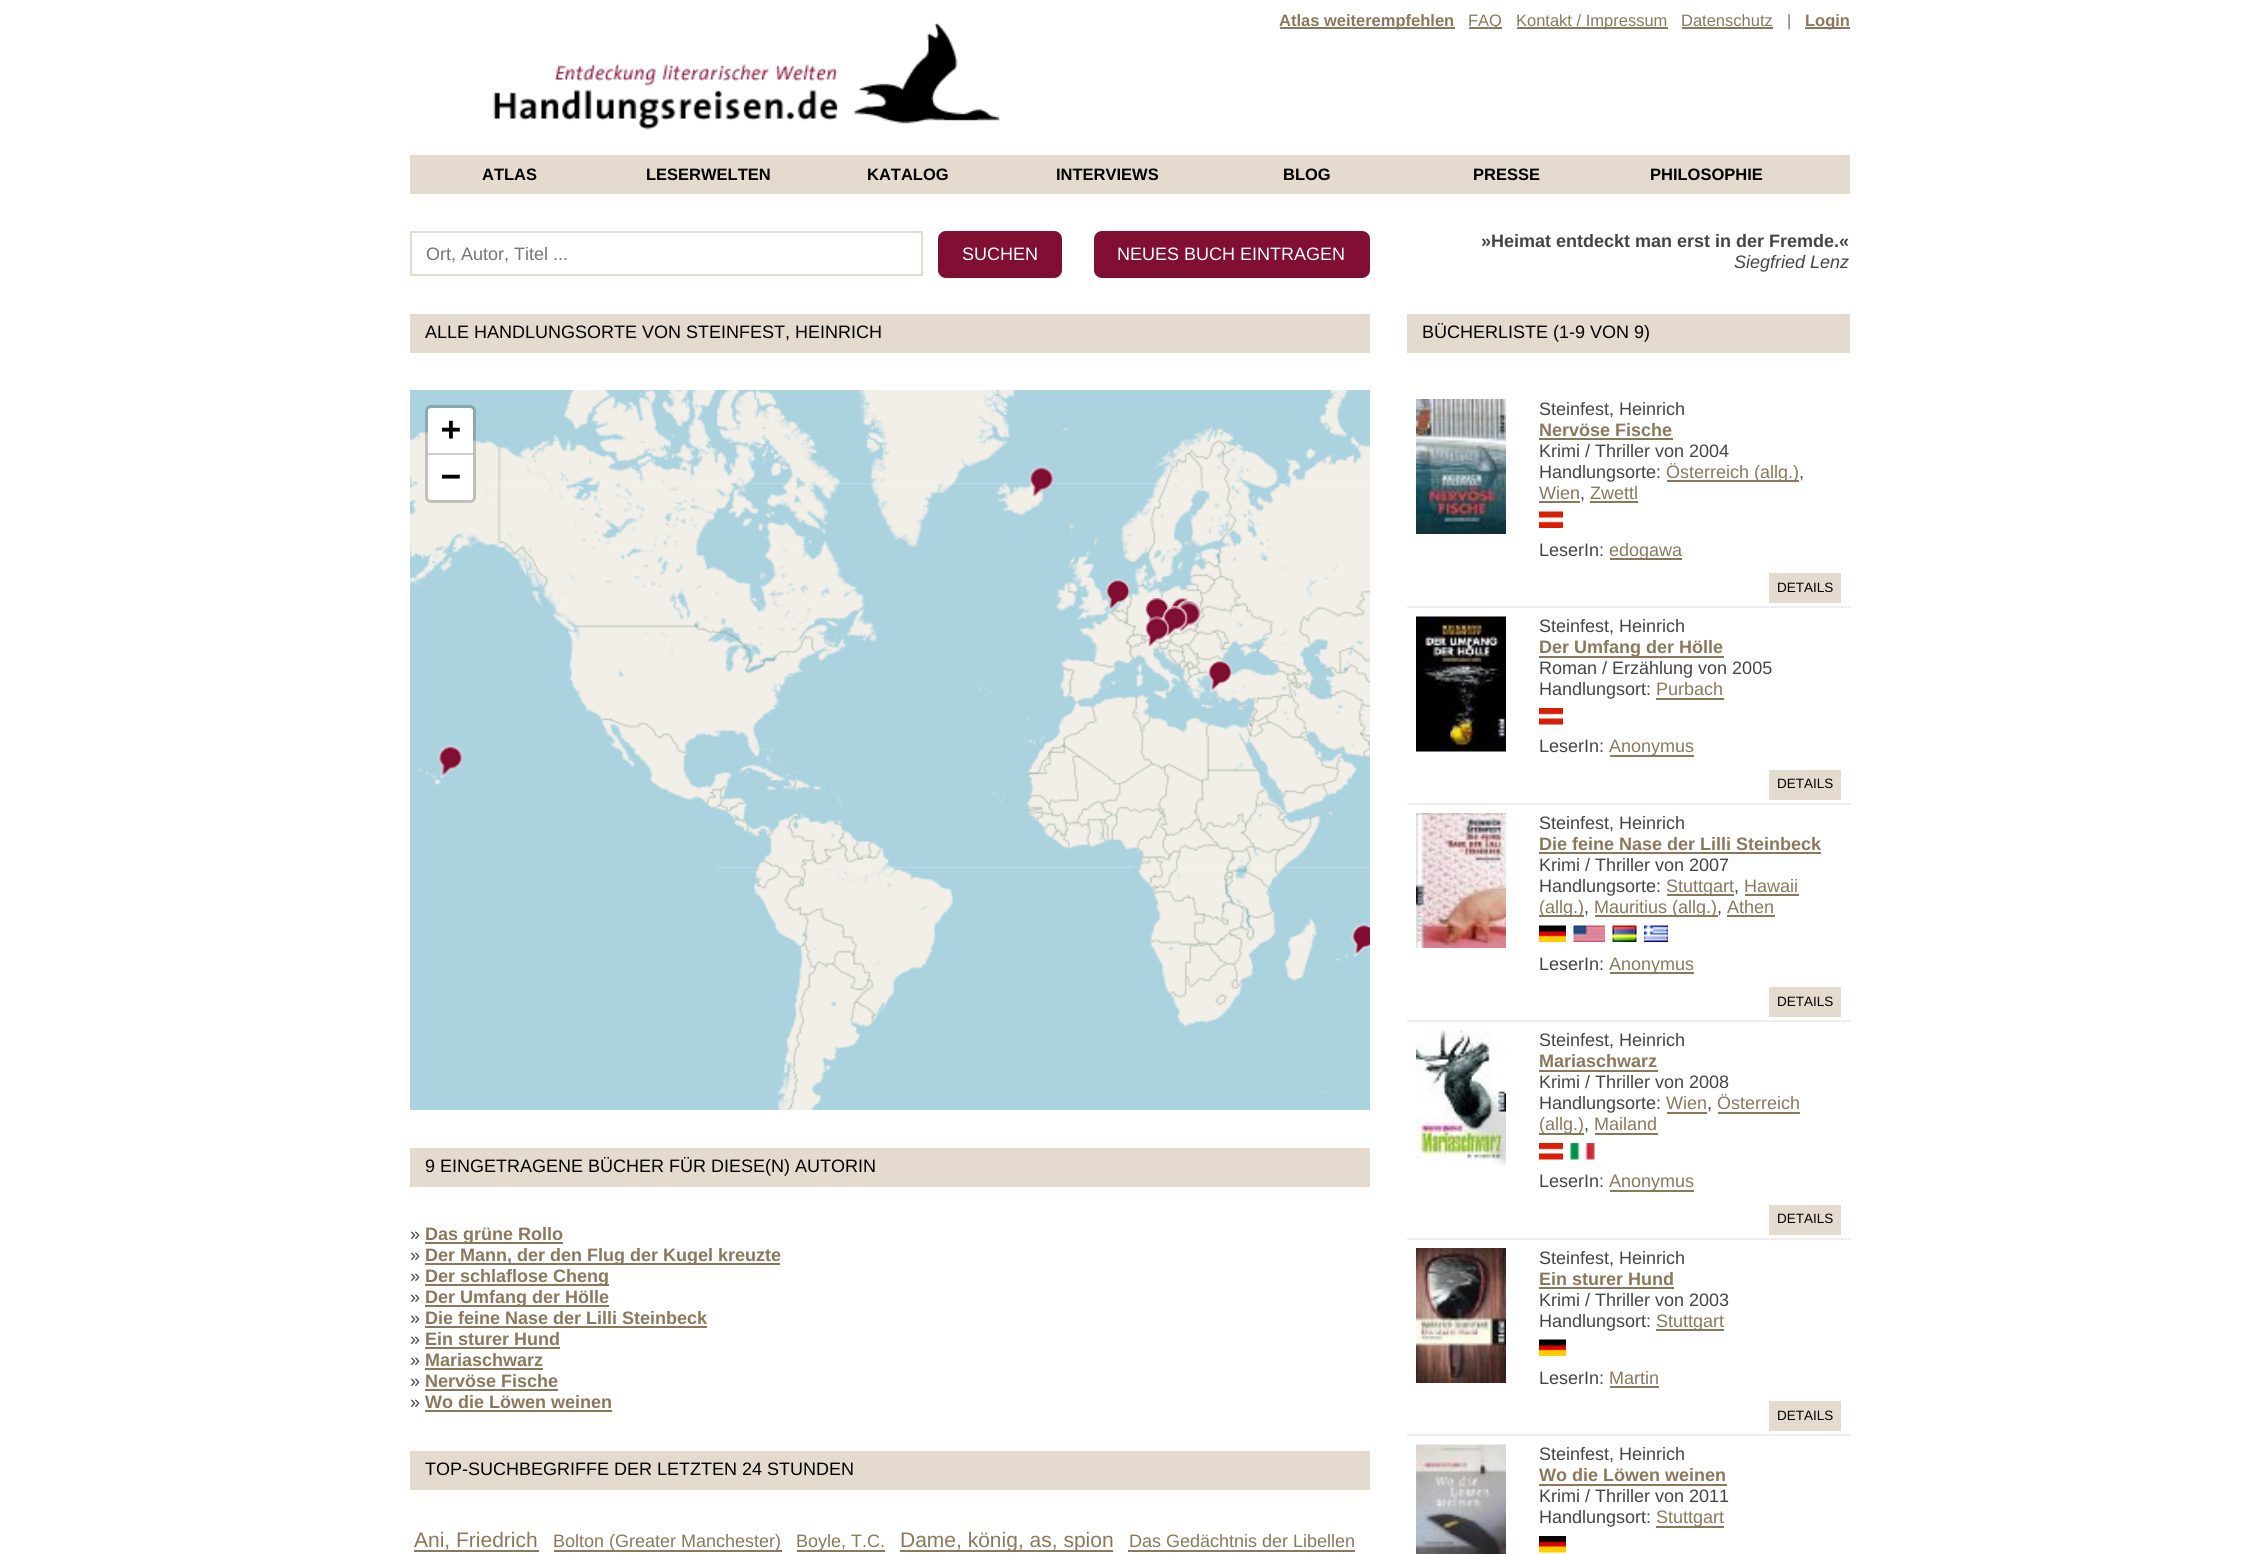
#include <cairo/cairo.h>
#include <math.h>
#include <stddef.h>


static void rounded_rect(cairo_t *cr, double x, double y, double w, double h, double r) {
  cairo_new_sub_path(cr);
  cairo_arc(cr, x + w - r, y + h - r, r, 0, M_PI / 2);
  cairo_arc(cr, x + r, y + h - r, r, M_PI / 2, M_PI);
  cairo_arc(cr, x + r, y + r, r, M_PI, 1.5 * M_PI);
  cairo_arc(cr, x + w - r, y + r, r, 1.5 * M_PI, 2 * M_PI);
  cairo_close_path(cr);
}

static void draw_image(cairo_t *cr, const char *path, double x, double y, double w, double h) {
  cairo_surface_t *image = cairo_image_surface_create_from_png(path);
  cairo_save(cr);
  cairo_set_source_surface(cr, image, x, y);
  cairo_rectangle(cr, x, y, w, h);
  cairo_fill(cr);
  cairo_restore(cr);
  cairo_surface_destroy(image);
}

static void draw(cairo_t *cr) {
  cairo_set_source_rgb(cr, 1, 1, 1);
  cairo_paint(cr);
  draw_image(cr, "images/1.png", 493, 23, 507, 107);
  cairo_set_source_rgb(cr, 140 / 255.0, 119 / 255.0, 91 / 255.0);
  cairo_rectangle(cr, 1280, 27, 175, 2);
  cairo_fill(cr);
  cairo_rectangle(cr, 1469, 27, 33, 2);
  cairo_fill(cr);
  cairo_rectangle(cr, 1517, 27, 151, 2);
  cairo_fill(cr);
  cairo_rectangle(cr, 1682, 27, 91, 2);
  cairo_fill(cr);
  cairo_rectangle(cr, 1805, 27, 45, 2);
  cairo_fill(cr);
  cairo_set_source_rgb(cr, 228 / 255.0, 219 / 255.0, 206 / 255.0);
  cairo_rectangle(cr, 410, 155, 1440, 39);
  cairo_fill(cr);
  cairo_rectangle(cr, 411, 232, 511, 43);
  cairo_stroke(cr);
  cairo_set_source_rgb(cr, 129 / 255.0, 14 / 255.0, 51 / 255.0);
  rounded_rect(cr, 939, 232, 122, 45, 7);
  cairo_fill_preserve(cr);
  cairo_stroke(cr);
  rounded_rect(cr, 1095, 232, 274, 45, 7);
  cairo_fill_preserve(cr);
  cairo_stroke(cr);
  cairo_set_source_rgb(cr, 228 / 255.0, 219 / 255.0, 206 / 255.0);
  cairo_rectangle(cr, 410, 314, 960, 39);
  cairo_fill(cr);
  draw_image(cr, "images/2.png", 410, 390, 307, 93);
  draw_image(cr, "images/3.png", 717, 390, 384, 93);
  draw_image(cr, "images/4.png", 1101, 390, 269, 93);
  draw_image(cr, "images/5.png", 410, 483, 307, 384);
  draw_image(cr, "images/6.png", 717, 483, 384, 384);
  draw_image(cr, "images/7.png", 1101, 483, 269, 384);
  cairo_set_source_rgb(cr, 170 / 255.0, 211 / 255.0, 223 / 255.0);
  cairo_rectangle(cr, 410, 867, 307, 243);
  cairo_fill(cr);
  draw_image(cr, "images/8.png", 717, 866, 384, 244);
  draw_image(cr, "images/9.png", 1101, 866, 269, 244);
  draw_image(cr, "images/10.png", 1028, 466, 27, 33);
  draw_image(cr, "images/11.png", 1105, 578, 26, 35);
  draw_image(cr, "images/12.png", 1144, 597, 25, 33);
  draw_image(cr, "images/13.png", 1145, 597, 24, 33);
  draw_image(cr, "images/14.png", 1170, 597, 25, 33);
  draw_image(cr, "images/15.png", 1147, 598, 22, 26);
  draw_image(cr, "images/16.png", 1176, 599, 25, 34);
  draw_image(cr, "images/17.png", 1176, 599, 25, 34);
  draw_image(cr, "images/18.png", 1176, 600, 25, 33);
  draw_image(cr, "images/20.png", 1177, 601, 24, 34);
  draw_image(cr, "images/19.png", 1162, 605, 26, 34);
  draw_image(cr, "images/22.png", 1162, 605, 26, 34);
  draw_image(cr, "images/21.png", 1144, 615, 26, 34);
  draw_image(cr, "images/23.png", 1207, 660, 26, 34);
  draw_image(cr, "images/24.png", 437, 745, 27, 34);
  draw_image(cr, "images/25.png", 1351, 923, 19, 35);
  rounded_rect(cr, 426.5, 406.5, 48, 95, 4.5);
  cairo_set_source_rgba(cr, 0, 0, 0, 0.2);
  cairo_set_line_width(cr, 3);
  cairo_stroke(cr);
  cairo_set_source_rgb(cr, 1, 1, 1);
  cairo_new_path(cr);
  cairo_move_to(cr, 431, 408);
  cairo_line_to(cr, 470, 408);
  cairo_curve_to(cr, 471.5, 408, 473, 409.5, 473, 411);
  cairo_line_to(cr, 473, 455);
  cairo_line_to(cr, 428, 455);
  cairo_line_to(cr, 428, 411);
  cairo_curve_to(cr, 428, 409.5, 429.5, 408, 431, 408);
  cairo_close_path(cr);
  cairo_fill(cr);
  cairo_set_source_rgb(cr, 204 / 255.0, 204 / 255.0, 204 / 255.0);
  cairo_rectangle(cr, 428, 453, 45, 2);
  cairo_fill(cr);
  cairo_set_source_rgb(cr, 1, 1, 1);
  cairo_new_path(cr);
  cairo_move_to(cr, 428, 455);
  cairo_line_to(cr, 473, 455);
  cairo_line_to(cr, 473, 497);
  cairo_curve_to(cr, 473, 498.5, 471.5, 500, 470, 500);
  cairo_line_to(cr, 431, 500);
  cairo_curve_to(cr, 429.5, 500, 428, 498.5, 428, 497);
  cairo_close_path(cr);
  cairo_fill(cr);
  cairo_set_source_rgb(cr, 228 / 255.0, 219 / 255.0, 206 / 255.0);
  cairo_rectangle(cr, 410, 1148, 960, 39);
  cairo_fill(cr);
  cairo_set_source_rgb(cr, 140 / 255.0, 119 / 255.0, 91 / 255.0);
  cairo_rectangle(cr, 425, 1242, 138, 2);
  cairo_fill(cr);
  cairo_rectangle(cr, 425, 1263, 355, 2);
  cairo_fill(cr);
  cairo_rectangle(cr, 425, 1284, 184, 2);
  cairo_fill(cr);
  cairo_rectangle(cr, 425, 1305, 184, 2);
  cairo_fill(cr);
  cairo_rectangle(cr, 425, 1326, 282, 2);
  cairo_fill(cr);
  cairo_rectangle(cr, 425, 1347, 135, 2);
  cairo_fill(cr);
  cairo_rectangle(cr, 425, 1368, 118, 2);
  cairo_fill(cr);
  cairo_rectangle(cr, 425, 1389, 133, 2);
  cairo_fill(cr);
  cairo_rectangle(cr, 425, 1410, 187, 2);
  cairo_fill(cr);
  cairo_set_source_rgb(cr, 228 / 255.0, 219 / 255.0, 206 / 255.0);
  cairo_rectangle(cr, 410, 1451, 960, 39);
  cairo_fill(cr);
  cairo_set_source_rgb(cr, 140 / 255.0, 119 / 255.0, 91 / 255.0);
  cairo_rectangle(cr, 414, 1550, 125, 2);
  cairo_fill(cr);
  cairo_rectangle(cr, 554, 1550, 228, 2);
  cairo_fill(cr);
  cairo_rectangle(cr, 797, 1550, 88, 2);
  cairo_fill(cr);
  cairo_rectangle(cr, 900, 1550, 213, 2);
  cairo_fill(cr);
  cairo_rectangle(cr, 1128, 1550, 227, 2);
  cairo_fill(cr);
  cairo_set_source_rgb(cr, 228 / 255.0, 219 / 255.0, 206 / 255.0);
  cairo_rectangle(cr, 1407, 314, 443, 39);
  cairo_fill(cr);
  draw_image(cr, "images/26.png", 1416, 399, 90, 135);
  cairo_set_source_rgb(cr, 238 / 255.0, 238 / 255.0, 238 / 255.0);
  cairo_rectangle(cr, 1407, 606, 444, 2);
  cairo_fill(cr);
  cairo_set_source_rgb(cr, 140 / 255.0, 119 / 255.0, 91 / 255.0);
  cairo_rectangle(cr, 1539, 438, 134, 2);
  cairo_fill(cr);
  cairo_rectangle(cr, 1667, 480, 132, 2);
  cairo_fill(cr);
  cairo_rectangle(cr, 1539, 501, 41, 2);
  cairo_fill(cr);
  cairo_rectangle(cr, 1590, 501, 48, 2);
  cairo_fill(cr);
  draw_image(cr, "images/27.png", 1539, 511, 24, 17);
  cairo_rectangle(cr, 1610, 558, 72, 2);
  cairo_fill(cr);
  cairo_set_source_rgb(cr, 228 / 255.0, 219 / 255.0, 206 / 255.0);
  cairo_rectangle(cr, 1769, 573, 72, 30);
  cairo_fill(cr);
  draw_image(cr, "images/28.png", 1416, 616, 90, 136);
  cairo_set_source_rgb(cr, 238 / 255.0, 238 / 255.0, 238 / 255.0);
  cairo_rectangle(cr, 1407, 803, 444, 2);
  cairo_fill(cr);
  cairo_set_source_rgb(cr, 140 / 255.0, 119 / 255.0, 91 / 255.0);
  cairo_rectangle(cr, 1539, 656, 185, 2);
  cairo_fill(cr);
  cairo_rectangle(cr, 1656, 698, 68, 2);
  cairo_fill(cr);
  draw_image(cr, "images/29.png", 1539, 708, 24, 17);
  cairo_rectangle(cr, 1610, 755, 84, 2);
  cairo_fill(cr);
  cairo_set_source_rgb(cr, 228 / 255.0, 219 / 255.0, 206 / 255.0);
  cairo_rectangle(cr, 1769, 770, 72, 30);
  cairo_fill(cr);
  draw_image(cr, "images/30.png", 1416, 813, 90, 135);
  cairo_set_source_rgb(cr, 238 / 255.0, 238 / 255.0, 238 / 255.0);
  cairo_rectangle(cr, 1407, 1020, 444, 2);
  cairo_fill(cr);
  cairo_set_source_rgb(cr, 140 / 255.0, 119 / 255.0, 91 / 255.0);
  cairo_rectangle(cr, 1539, 852, 282, 2);
  cairo_fill(cr);
  cairo_rectangle(cr, 1667, 894, 67, 2);
  cairo_fill(cr);
  cairo_rectangle(cr, 1745, 894, 54, 2);
  cairo_fill(cr);
  cairo_rectangle(cr, 1539, 915, 45, 2);
  cairo_fill(cr);
  cairo_rectangle(cr, 1595, 915, 123, 2);
  cairo_fill(cr);
  cairo_rectangle(cr, 1727, 915, 48, 2);
  cairo_fill(cr);
  draw_image(cr, "images/31.png", 1539, 925, 27, 17);
  draw_image(cr, "images/32.png", 1573, 925, 32, 17);
  draw_image(cr, "images/33.png", 1612, 925, 25, 17);
  draw_image(cr, "images/34.png", 1644, 925, 24, 17);
  cairo_rectangle(cr, 1610, 972, 84, 2);
  cairo_fill(cr);
  cairo_set_source_rgb(cr, 228 / 255.0, 219 / 255.0, 206 / 255.0);
  cairo_rectangle(cr, 1769, 987, 72, 30);
  cairo_fill(cr);
  draw_image(cr, "images/35.png", 1416, 1030, 90, 136);
  cairo_set_source_rgb(cr, 238 / 255.0, 238 / 255.0, 238 / 255.0);
  cairo_rectangle(cr, 1407, 1238, 444, 2);
  cairo_fill(cr);
  cairo_set_source_rgb(cr, 140 / 255.0, 119 / 255.0, 91 / 255.0);
  cairo_rectangle(cr, 1539, 1070, 119, 2);
  cairo_fill(cr);
  cairo_rectangle(cr, 1667, 1112, 40, 2);
  cairo_fill(cr);
  cairo_rectangle(cr, 1718, 1112, 82, 2);
  cairo_fill(cr);
  cairo_rectangle(cr, 1539, 1133, 45, 2);
  cairo_fill(cr);
  cairo_rectangle(cr, 1595, 1133, 63, 2);
  cairo_fill(cr);
  draw_image(cr, "images/29.png", 1539, 1143, 24, 17);
  draw_image(cr, "images/36.png", 1570, 1143, 25, 17);
  cairo_rectangle(cr, 1610, 1190, 84, 2);
  cairo_fill(cr);
  cairo_set_source_rgb(cr, 228 / 255.0, 219 / 255.0, 206 / 255.0);
  cairo_rectangle(cr, 1769, 1205, 72, 30);
  cairo_fill(cr);
  draw_image(cr, "images/37.png", 1416, 1248, 90, 135);
  cairo_set_source_rgb(cr, 238 / 255.0, 238 / 255.0, 238 / 255.0);
  cairo_rectangle(cr, 1407, 1434, 444, 2);
  cairo_fill(cr);
  cairo_set_source_rgb(cr, 140 / 255.0, 119 / 255.0, 91 / 255.0);
  cairo_rectangle(cr, 1539, 1287, 135, 2);
  cairo_fill(cr);
  cairo_rectangle(cr, 1656, 1329, 68, 2);
  cairo_fill(cr);
  draw_image(cr, "images/31.png", 1539, 1339, 27, 17);
  cairo_rectangle(cr, 1610, 1386, 49, 2);
  cairo_fill(cr);
  cairo_set_source_rgb(cr, 228 / 255.0, 219 / 255.0, 206 / 255.0);
  cairo_rectangle(cr, 1769, 1401, 72, 30);
  cairo_fill(cr);
  draw_image(cr, "images/38.png", 1416, 1444, 90, 110);
  cairo_set_source_rgb(cr, 140 / 255.0, 119 / 255.0, 91 / 255.0);
  cairo_rectangle(cr, 1539, 1484, 188, 2);
  cairo_fill(cr);
  cairo_rectangle(cr, 1656, 1526, 68, 2);
  cairo_fill(cr);
  draw_image(cr, "images/39.png", 1539, 1536, 27, 17);
  cairo_select_font_face(cr, "Liberation Sans", CAIRO_FONT_SLANT_NORMAL, CAIRO_FONT_WEIGHT_BOLD);
  cairo_set_font_size(cr, 16.5);
  cairo_move_to(cr, 1279, 26);
  cairo_show_text(cr, "Atlas weiterempfehlen");
  cairo_select_font_face(cr, "Liberation Sans", CAIRO_FONT_SLANT_NORMAL, CAIRO_FONT_WEIGHT_NORMAL);
  cairo_move_to(cr, 1468, 26);
  cairo_show_text(cr, "FAQ");
  cairo_move_to(cr, 1516, 26);
  cairo_show_text(cr, "Kontakt / Impressum");
  cairo_move_to(cr, 1681, 26);
  cairo_show_text(cr, "Datenschutz");
  cairo_move_to(cr, 1787, 26);
  cairo_show_text(cr, "|");
  cairo_select_font_face(cr, "Liberation Sans", CAIRO_FONT_SLANT_NORMAL, CAIRO_FONT_WEIGHT_BOLD);
  cairo_move_to(cr, 1805, 26);
  cairo_show_text(cr, "Login");
  cairo_set_source_rgb(cr, 0, 0, 0);
  cairo_move_to(cr, 482, 180);
  cairo_show_text(cr, "ATLAS");
  cairo_move_to(cr, 646, 180);
  cairo_show_text(cr, "LESERWELTEN");
  cairo_move_to(cr, 867, 180);
  cairo_show_text(cr, "KATALOG");
  cairo_move_to(cr, 1056, 180);
  cairo_show_text(cr, "INTERVIEWS");
  cairo_move_to(cr, 1283, 180);
  cairo_show_text(cr, "BLOG");
  cairo_move_to(cr, 1473, 180);
  cairo_show_text(cr, "PRESSE");
  cairo_move_to(cr, 1650, 180);
  cairo_show_text(cr, "PHILOSOPHIE");
  cairo_select_font_face(cr, "Liberation Sans", CAIRO_FONT_SLANT_NORMAL, CAIRO_FONT_WEIGHT_NORMAL);
  cairo_set_font_size(cr, 18);
  cairo_set_source_rgb(cr, 117 / 255.0, 117 / 255.0, 117 / 255.0);
  cairo_move_to(cr, 426, 260);
  cairo_show_text(cr, "Ort, Autor, Titel ...");
  cairo_set_source_rgb(cr, 1, 1, 1);
  cairo_move_to(cr, 962, 260);
  cairo_show_text(cr, "SUCHEN");
  cairo_move_to(cr, 1117, 260);
  cairo_show_text(cr, "NEUES BUCH EINTRAGEN");
  cairo_set_source_rgb(cr, 0, 0, 0);
  cairo_move_to(cr, 425, 338);
  cairo_show_text(cr, "ALLE HANDLUNGSORTE VON STEINFEST, HEINRICH");
  cairo_select_font_face(cr, "DejaVu Sans Mono", CAIRO_FONT_SLANT_NORMAL, CAIRO_FONT_WEIGHT_BOLD);
  cairo_set_font_size(cr, 33);
  cairo_move_to(cr, 441, 440);
  cairo_show_text(cr, "+");
  cairo_move_to(cr, 441, 487);
  cairo_show_text(cr, "−");
  cairo_select_font_face(cr, "Liberation Sans", CAIRO_FONT_SLANT_NORMAL, CAIRO_FONT_WEIGHT_NORMAL);
  cairo_set_font_size(cr, 18);
  cairo_move_to(cr, 425, 1172);
  cairo_show_text(cr, "9 EINGETRAGENE BÜCHER FÜR DIESE(N) AUTORIN");
  cairo_set_source_rgb(cr, 68 / 255.0, 68 / 255.0, 68 / 255.0);
  cairo_move_to(cr, 410, 1240);
  cairo_show_text(cr, "»");
  cairo_select_font_face(cr, "Liberation Sans", CAIRO_FONT_SLANT_NORMAL, CAIRO_FONT_WEIGHT_BOLD);
  cairo_set_source_rgb(cr, 140 / 255.0, 119 / 255.0, 91 / 255.0);
  cairo_move_to(cr, 425, 1240);
  cairo_show_text(cr, "Das grüne Rollo");
  cairo_select_font_face(cr, "Liberation Sans", CAIRO_FONT_SLANT_NORMAL, CAIRO_FONT_WEIGHT_NORMAL);
  cairo_set_source_rgb(cr, 68 / 255.0, 68 / 255.0, 68 / 255.0);
  cairo_move_to(cr, 410, 1261);
  cairo_show_text(cr, "»");
  cairo_select_font_face(cr, "Liberation Sans", CAIRO_FONT_SLANT_NORMAL, CAIRO_FONT_WEIGHT_BOLD);
  cairo_set_source_rgb(cr, 140 / 255.0, 119 / 255.0, 91 / 255.0);
  cairo_move_to(cr, 425, 1261);
  cairo_show_text(cr, "Der Mann, der den Flug der Kugel kreuzte");
  cairo_select_font_face(cr, "Liberation Sans", CAIRO_FONT_SLANT_NORMAL, CAIRO_FONT_WEIGHT_NORMAL);
  cairo_set_source_rgb(cr, 68 / 255.0, 68 / 255.0, 68 / 255.0);
  cairo_move_to(cr, 410, 1282);
  cairo_show_text(cr, "»");
  cairo_select_font_face(cr, "Liberation Sans", CAIRO_FONT_SLANT_NORMAL, CAIRO_FONT_WEIGHT_BOLD);
  cairo_set_source_rgb(cr, 140 / 255.0, 119 / 255.0, 91 / 255.0);
  cairo_move_to(cr, 425, 1282);
  cairo_show_text(cr, "Der schlaflose Cheng");
  cairo_select_font_face(cr, "Liberation Sans", CAIRO_FONT_SLANT_NORMAL, CAIRO_FONT_WEIGHT_NORMAL);
  cairo_set_source_rgb(cr, 68 / 255.0, 68 / 255.0, 68 / 255.0);
  cairo_move_to(cr, 410, 1303);
  cairo_show_text(cr, "»");
  cairo_select_font_face(cr, "Liberation Sans", CAIRO_FONT_SLANT_NORMAL, CAIRO_FONT_WEIGHT_BOLD);
  cairo_set_source_rgb(cr, 140 / 255.0, 119 / 255.0, 91 / 255.0);
  cairo_move_to(cr, 425, 1303);
  cairo_show_text(cr, "Der Umfang der Hölle");
  cairo_select_font_face(cr, "Liberation Sans", CAIRO_FONT_SLANT_NORMAL, CAIRO_FONT_WEIGHT_NORMAL);
  cairo_set_source_rgb(cr, 68 / 255.0, 68 / 255.0, 68 / 255.0);
  cairo_move_to(cr, 410, 1324);
  cairo_show_text(cr, "»");
  cairo_select_font_face(cr, "Liberation Sans", CAIRO_FONT_SLANT_NORMAL, CAIRO_FONT_WEIGHT_BOLD);
  cairo_set_source_rgb(cr, 140 / 255.0, 119 / 255.0, 91 / 255.0);
  cairo_move_to(cr, 425, 1324);
  cairo_show_text(cr, "Die feine Nase der Lilli Steinbeck");
  cairo_select_font_face(cr, "Liberation Sans", CAIRO_FONT_SLANT_NORMAL, CAIRO_FONT_WEIGHT_NORMAL);
  cairo_set_source_rgb(cr, 68 / 255.0, 68 / 255.0, 68 / 255.0);
  cairo_move_to(cr, 410, 1345);
  cairo_show_text(cr, "»");
  cairo_select_font_face(cr, "Liberation Sans", CAIRO_FONT_SLANT_NORMAL, CAIRO_FONT_WEIGHT_BOLD);
  cairo_set_source_rgb(cr, 140 / 255.0, 119 / 255.0, 91 / 255.0);
  cairo_move_to(cr, 425, 1345);
  cairo_show_text(cr, "Ein sturer Hund");
  cairo_select_font_face(cr, "Liberation Sans", CAIRO_FONT_SLANT_NORMAL, CAIRO_FONT_WEIGHT_NORMAL);
  cairo_set_source_rgb(cr, 68 / 255.0, 68 / 255.0, 68 / 255.0);
  cairo_move_to(cr, 410, 1366);
  cairo_show_text(cr, "»");
  cairo_select_font_face(cr, "Liberation Sans", CAIRO_FONT_SLANT_NORMAL, CAIRO_FONT_WEIGHT_BOLD);
  cairo_set_source_rgb(cr, 140 / 255.0, 119 / 255.0, 91 / 255.0);
  cairo_move_to(cr, 425, 1366);
  cairo_show_text(cr, "Mariaschwarz");
  cairo_select_font_face(cr, "Liberation Sans", CAIRO_FONT_SLANT_NORMAL, CAIRO_FONT_WEIGHT_NORMAL);
  cairo_set_source_rgb(cr, 68 / 255.0, 68 / 255.0, 68 / 255.0);
  cairo_move_to(cr, 410, 1387);
  cairo_show_text(cr, "»");
  cairo_select_font_face(cr, "Liberation Sans", CAIRO_FONT_SLANT_NORMAL, CAIRO_FONT_WEIGHT_BOLD);
  cairo_set_source_rgb(cr, 140 / 255.0, 119 / 255.0, 91 / 255.0);
  cairo_move_to(cr, 425, 1387);
  cairo_show_text(cr, "Nervöse Fische");
  cairo_select_font_face(cr, "Liberation Sans", CAIRO_FONT_SLANT_NORMAL, CAIRO_FONT_WEIGHT_NORMAL);
  cairo_set_source_rgb(cr, 68 / 255.0, 68 / 255.0, 68 / 255.0);
  cairo_move_to(cr, 410, 1408);
  cairo_show_text(cr, "»");
  cairo_select_font_face(cr, "Liberation Sans", CAIRO_FONT_SLANT_NORMAL, CAIRO_FONT_WEIGHT_BOLD);
  cairo_set_source_rgb(cr, 140 / 255.0, 119 / 255.0, 91 / 255.0);
  cairo_move_to(cr, 425, 1408);
  cairo_show_text(cr, "Wo die Löwen weinen");
  cairo_select_font_face(cr, "Liberation Sans", CAIRO_FONT_SLANT_NORMAL, CAIRO_FONT_WEIGHT_NORMAL);
  cairo_set_source_rgb(cr, 0, 0, 0);
  cairo_move_to(cr, 425, 1475);
  cairo_show_text(cr, "TOP-SUCHBEGRIFFE DER LETZTEN 24 STUNDEN");
  cairo_set_font_size(cr, 21);
  cairo_set_source_rgb(cr, 140 / 255.0, 119 / 255.0, 91 / 255.0);
  cairo_move_to(cr, 414, 1547);
  cairo_show_text(cr, "Ani, Friedrich");
  cairo_set_font_size(cr, 18);
  cairo_move_to(cr, 553, 1547);
  cairo_show_text(cr, "Bolton (Greater Manchester)");
  cairo_move_to(cr, 796, 1547);
  cairo_show_text(cr, "Boyle, T.C.");
  cairo_set_font_size(cr, 21);
  cairo_move_to(cr, 900, 1547);
  cairo_show_text(cr, "Dame, könig, as, spion");
  cairo_set_font_size(cr, 18);
  cairo_move_to(cr, 1129, 1547);
  cairo_show_text(cr, "Das Gedächtnis der Libellen");
  cairo_select_font_face(cr, "Liberation Sans", CAIRO_FONT_SLANT_NORMAL, CAIRO_FONT_WEIGHT_BOLD);
  cairo_set_source_rgb(cr, 68 / 255.0, 68 / 255.0, 68 / 255.0);
  cairo_move_to(cr, 1481, 247);
  cairo_show_text(cr, "»Heimat entdeckt man erst in der Fremde.«");
  cairo_select_font_face(cr, "Liberation Sans", CAIRO_FONT_SLANT_ITALIC, CAIRO_FONT_WEIGHT_NORMAL);
  cairo_move_to(cr, 1734, 268);
  cairo_show_text(cr, "Siegfried Lenz");
  cairo_select_font_face(cr, "Liberation Sans", CAIRO_FONT_SLANT_NORMAL, CAIRO_FONT_WEIGHT_NORMAL);
  cairo_set_source_rgb(cr, 0, 0, 0);
  cairo_move_to(cr, 1422, 338);
  cairo_show_text(cr, "BÜCHERLISTE (1-9 VON 9)");
  cairo_set_source_rgb(cr, 68 / 255.0, 68 / 255.0, 68 / 255.0);
  cairo_move_to(cr, 1539, 415);
  cairo_show_text(cr, "Steinfest, Heinrich");
  cairo_select_font_face(cr, "Liberation Sans", CAIRO_FONT_SLANT_NORMAL, CAIRO_FONT_WEIGHT_BOLD);
  cairo_set_source_rgb(cr, 140 / 255.0, 119 / 255.0, 91 / 255.0);
  cairo_move_to(cr, 1539, 436);
  cairo_show_text(cr, "Nervöse Fische");
  cairo_select_font_face(cr, "Liberation Sans", CAIRO_FONT_SLANT_NORMAL, CAIRO_FONT_WEIGHT_NORMAL);
  cairo_set_source_rgb(cr, 68 / 255.0, 68 / 255.0, 68 / 255.0);
  cairo_move_to(cr, 1539, 457);
  cairo_show_text(cr, "Krimi / Thriller von 2004");
  cairo_move_to(cr, 1539, 478);
  cairo_show_text(cr, "Handlungsorte:");
  cairo_set_source_rgb(cr, 140 / 255.0, 119 / 255.0, 91 / 255.0);
  cairo_move_to(cr, 1666, 478);
  cairo_show_text(cr, "Österreich (allg.)");
  cairo_set_source_rgb(cr, 68 / 255.0, 68 / 255.0, 68 / 255.0);
  cairo_move_to(cr, 1799, 478);
  cairo_show_text(cr, ",");
  cairo_set_source_rgb(cr, 140 / 255.0, 119 / 255.0, 91 / 255.0);
  cairo_move_to(cr, 1539, 499);
  cairo_show_text(cr, "Wien");
  cairo_set_source_rgb(cr, 68 / 255.0, 68 / 255.0, 68 / 255.0);
  cairo_move_to(cr, 1580, 499);
  cairo_show_text(cr, ",");
  cairo_set_source_rgb(cr, 140 / 255.0, 119 / 255.0, 91 / 255.0);
  cairo_move_to(cr, 1590, 499);
  cairo_show_text(cr, "Zwettl");
  cairo_set_source_rgb(cr, 68 / 255.0, 68 / 255.0, 68 / 255.0);
  cairo_move_to(cr, 1539, 556);
  cairo_show_text(cr, "LeserIn:");
  cairo_set_source_rgb(cr, 140 / 255.0, 119 / 255.0, 91 / 255.0);
  cairo_move_to(cr, 1609, 556);
  cairo_show_text(cr, "edogawa");
  cairo_set_font_size(cr, 13.5);
  cairo_set_source_rgb(cr, 0, 0, 0);
  cairo_move_to(cr, 1777, 592);
  cairo_show_text(cr, "DETAILS");
  cairo_set_font_size(cr, 18);
  cairo_set_source_rgb(cr, 68 / 255.0, 68 / 255.0, 68 / 255.0);
  cairo_move_to(cr, 1539, 632);
  cairo_show_text(cr, "Steinfest, Heinrich");
  cairo_select_font_face(cr, "Liberation Sans", CAIRO_FONT_SLANT_NORMAL, CAIRO_FONT_WEIGHT_BOLD);
  cairo_set_source_rgb(cr, 140 / 255.0, 119 / 255.0, 91 / 255.0);
  cairo_move_to(cr, 1539, 653);
  cairo_show_text(cr, "Der Umfang der Hölle");
  cairo_select_font_face(cr, "Liberation Sans", CAIRO_FONT_SLANT_NORMAL, CAIRO_FONT_WEIGHT_NORMAL);
  cairo_set_source_rgb(cr, 68 / 255.0, 68 / 255.0, 68 / 255.0);
  cairo_move_to(cr, 1539, 674);
  cairo_show_text(cr, "Roman / Erzählung von 2005");
  cairo_move_to(cr, 1539, 695);
  cairo_show_text(cr, "Handlungsort:");
  cairo_set_source_rgb(cr, 140 / 255.0, 119 / 255.0, 91 / 255.0);
  cairo_move_to(cr, 1656, 695);
  cairo_show_text(cr, "Purbach");
  cairo_set_source_rgb(cr, 68 / 255.0, 68 / 255.0, 68 / 255.0);
  cairo_move_to(cr, 1539, 752);
  cairo_show_text(cr, "LeserIn:");
  cairo_set_source_rgb(cr, 140 / 255.0, 119 / 255.0, 91 / 255.0);
  cairo_move_to(cr, 1609, 752);
  cairo_show_text(cr, "Anonymus");
  cairo_set_font_size(cr, 13.5);
  cairo_set_source_rgb(cr, 0, 0, 0);
  cairo_move_to(cr, 1777, 788);
  cairo_show_text(cr, "DETAILS");
  cairo_set_font_size(cr, 18);
  cairo_set_source_rgb(cr, 68 / 255.0, 68 / 255.0, 68 / 255.0);
  cairo_move_to(cr, 1539, 829);
  cairo_show_text(cr, "Steinfest, Heinrich");
  cairo_select_font_face(cr, "Liberation Sans", CAIRO_FONT_SLANT_NORMAL, CAIRO_FONT_WEIGHT_BOLD);
  cairo_set_source_rgb(cr, 140 / 255.0, 119 / 255.0, 91 / 255.0);
  cairo_move_to(cr, 1539, 850);
  cairo_show_text(cr, "Die feine Nase der Lilli Steinbeck");
  cairo_select_font_face(cr, "Liberation Sans", CAIRO_FONT_SLANT_NORMAL, CAIRO_FONT_WEIGHT_NORMAL);
  cairo_set_source_rgb(cr, 68 / 255.0, 68 / 255.0, 68 / 255.0);
  cairo_move_to(cr, 1539, 871);
  cairo_show_text(cr, "Krimi / Thriller von 2007");
  cairo_move_to(cr, 1539, 892);
  cairo_show_text(cr, "Handlungsorte:");
  cairo_set_source_rgb(cr, 140 / 255.0, 119 / 255.0, 91 / 255.0);
  cairo_move_to(cr, 1666, 892);
  cairo_show_text(cr, "Stuttgart");
  cairo_set_source_rgb(cr, 68 / 255.0, 68 / 255.0, 68 / 255.0);
  cairo_move_to(cr, 1734, 892);
  cairo_show_text(cr, ",");
  cairo_set_source_rgb(cr, 140 / 255.0, 119 / 255.0, 91 / 255.0);
  cairo_move_to(cr, 1744, 892);
  cairo_show_text(cr, "Hawaii");
  cairo_move_to(cr, 1539, 913);
  cairo_show_text(cr, "(allg.)");
  cairo_set_source_rgb(cr, 68 / 255.0, 68 / 255.0, 68 / 255.0);
  cairo_move_to(cr, 1584, 913);
  cairo_show_text(cr, ",");
  cairo_set_source_rgb(cr, 140 / 255.0, 119 / 255.0, 91 / 255.0);
  cairo_move_to(cr, 1594, 913);
  cairo_show_text(cr, "Mauritius (allg.)");
  cairo_set_source_rgb(cr, 68 / 255.0, 68 / 255.0, 68 / 255.0);
  cairo_move_to(cr, 1717, 913);
  cairo_show_text(cr, ",");
  cairo_set_source_rgb(cr, 140 / 255.0, 119 / 255.0, 91 / 255.0);
  cairo_move_to(cr, 1727, 913);
  cairo_show_text(cr, "Athen");
  cairo_set_source_rgb(cr, 68 / 255.0, 68 / 255.0, 68 / 255.0);
  cairo_move_to(cr, 1539, 970);
  cairo_show_text(cr, "LeserIn:");
  cairo_set_source_rgb(cr, 140 / 255.0, 119 / 255.0, 91 / 255.0);
  cairo_move_to(cr, 1609, 970);
  cairo_show_text(cr, "Anonymus");
  cairo_set_font_size(cr, 13.5);
  cairo_set_source_rgb(cr, 0, 0, 0);
  cairo_move_to(cr, 1777, 1006);
  cairo_show_text(cr, "DETAILS");
  cairo_set_font_size(cr, 18);
  cairo_set_source_rgb(cr, 68 / 255.0, 68 / 255.0, 68 / 255.0);
  cairo_move_to(cr, 1539, 1046);
  cairo_show_text(cr, "Steinfest, Heinrich");
  cairo_select_font_face(cr, "Liberation Sans", CAIRO_FONT_SLANT_NORMAL, CAIRO_FONT_WEIGHT_BOLD);
  cairo_set_source_rgb(cr, 140 / 255.0, 119 / 255.0, 91 / 255.0);
  cairo_move_to(cr, 1539, 1067);
  cairo_show_text(cr, "Mariaschwarz");
  cairo_select_font_face(cr, "Liberation Sans", CAIRO_FONT_SLANT_NORMAL, CAIRO_FONT_WEIGHT_NORMAL);
  cairo_set_source_rgb(cr, 68 / 255.0, 68 / 255.0, 68 / 255.0);
  cairo_move_to(cr, 1539, 1088);
  cairo_show_text(cr, "Krimi / Thriller von 2008");
  cairo_move_to(cr, 1539, 1109);
  cairo_show_text(cr, "Handlungsorte:");
  cairo_set_source_rgb(cr, 140 / 255.0, 119 / 255.0, 91 / 255.0);
  cairo_move_to(cr, 1666, 1109);
  cairo_show_text(cr, "Wien");
  cairo_set_source_rgb(cr, 68 / 255.0, 68 / 255.0, 68 / 255.0);
  cairo_move_to(cr, 1707, 1109);
  cairo_show_text(cr, ",");
  cairo_set_source_rgb(cr, 140 / 255.0, 119 / 255.0, 91 / 255.0);
  cairo_move_to(cr, 1717, 1109);
  cairo_show_text(cr, "Österreich");
  cairo_move_to(cr, 1539, 1130);
  cairo_show_text(cr, "(allg.)");
  cairo_set_source_rgb(cr, 68 / 255.0, 68 / 255.0, 68 / 255.0);
  cairo_move_to(cr, 1584, 1130);
  cairo_show_text(cr, ",");
  cairo_set_source_rgb(cr, 140 / 255.0, 119 / 255.0, 91 / 255.0);
  cairo_move_to(cr, 1594, 1130);
  cairo_show_text(cr, "Mailand");
  cairo_set_source_rgb(cr, 68 / 255.0, 68 / 255.0, 68 / 255.0);
  cairo_move_to(cr, 1539, 1187);
  cairo_show_text(cr, "LeserIn:");
  cairo_set_source_rgb(cr, 140 / 255.0, 119 / 255.0, 91 / 255.0);
  cairo_move_to(cr, 1609, 1187);
  cairo_show_text(cr, "Anonymus");
  cairo_set_font_size(cr, 13.5);
  cairo_set_source_rgb(cr, 0, 0, 0);
  cairo_move_to(cr, 1777, 1223);
  cairo_show_text(cr, "DETAILS");
  cairo_set_font_size(cr, 18);
  cairo_set_source_rgb(cr, 68 / 255.0, 68 / 255.0, 68 / 255.0);
  cairo_move_to(cr, 1539, 1264);
  cairo_show_text(cr, "Steinfest, Heinrich");
  cairo_select_font_face(cr, "Liberation Sans", CAIRO_FONT_SLANT_NORMAL, CAIRO_FONT_WEIGHT_BOLD);
  cairo_set_source_rgb(cr, 140 / 255.0, 119 / 255.0, 91 / 255.0);
  cairo_move_to(cr, 1539, 1285);
  cairo_show_text(cr, "Ein sturer Hund");
  cairo_select_font_face(cr, "Liberation Sans", CAIRO_FONT_SLANT_NORMAL, CAIRO_FONT_WEIGHT_NORMAL);
  cairo_set_source_rgb(cr, 68 / 255.0, 68 / 255.0, 68 / 255.0);
  cairo_move_to(cr, 1539, 1306);
  cairo_show_text(cr, "Krimi / Thriller von 2003");
  cairo_move_to(cr, 1539, 1327);
  cairo_show_text(cr, "Handlungsort:");
  cairo_set_source_rgb(cr, 140 / 255.0, 119 / 255.0, 91 / 255.0);
  cairo_move_to(cr, 1656, 1327);
  cairo_show_text(cr, "Stuttgart");
  cairo_set_source_rgb(cr, 68 / 255.0, 68 / 255.0, 68 / 255.0);
  cairo_move_to(cr, 1539, 1384);
  cairo_show_text(cr, "LeserIn:");
  cairo_set_source_rgb(cr, 140 / 255.0, 119 / 255.0, 91 / 255.0);
  cairo_move_to(cr, 1609, 1384);
  cairo_show_text(cr, "Martin");
  cairo_set_font_size(cr, 13.5);
  cairo_set_source_rgb(cr, 0, 0, 0);
  cairo_move_to(cr, 1777, 1420);
  cairo_show_text(cr, "DETAILS");
  cairo_set_font_size(cr, 18);
  cairo_set_source_rgb(cr, 68 / 255.0, 68 / 255.0, 68 / 255.0);
  cairo_move_to(cr, 1539, 1460);
  cairo_show_text(cr, "Steinfest, Heinrich");
  cairo_select_font_face(cr, "Liberation Sans", CAIRO_FONT_SLANT_NORMAL, CAIRO_FONT_WEIGHT_BOLD);
  cairo_set_source_rgb(cr, 140 / 255.0, 119 / 255.0, 91 / 255.0);
  cairo_move_to(cr, 1539, 1481);
  cairo_show_text(cr, "Wo die Löwen weinen");
  cairo_select_font_face(cr, "Liberation Sans", CAIRO_FONT_SLANT_NORMAL, CAIRO_FONT_WEIGHT_NORMAL);
  cairo_set_source_rgb(cr, 68 / 255.0, 68 / 255.0, 68 / 255.0);
  cairo_move_to(cr, 1539, 1502);
  cairo_show_text(cr, "Krimi / Thriller von 2011");
  cairo_move_to(cr, 1539, 1523);
  cairo_show_text(cr, "Handlungsort:");
  cairo_set_source_rgb(cr, 140 / 255.0, 119 / 255.0, 91 / 255.0);
  cairo_move_to(cr, 1656, 1523);
  cairo_show_text(cr, "Stuttgart");
}

int main(void) {
  cairo_surface_t *surface = cairo_image_surface_create(CAIRO_FORMAT_RGB24, 2259, 1554);
  cairo_t *cr = cairo_create(surface);
  cairo_font_options_t *options = cairo_font_options_create();
  cairo_font_options_set_hint_metrics(options, CAIRO_HINT_METRICS_OFF);
  cairo_font_options_set_hint_style(options, CAIRO_HINT_STYLE_NONE);
  cairo_set_font_options(cr, options);
  cairo_set_miter_limit(cr, 4);
  draw(cr);
  cairo_surface_write_to_png(surface, "out.png");
  cairo_font_options_destroy(options);
  cairo_destroy(cr);
  cairo_surface_destroy(surface);
  return 0;
}
